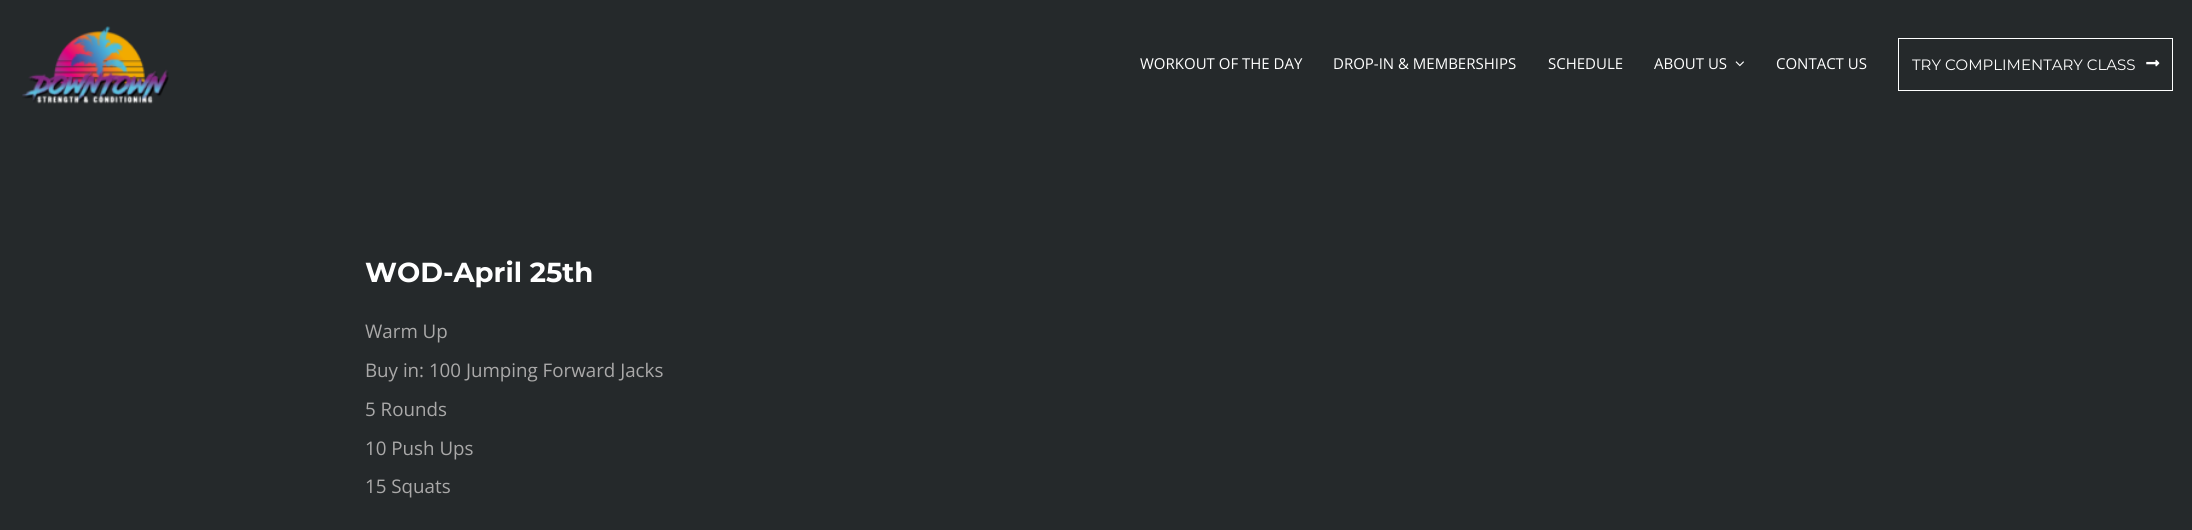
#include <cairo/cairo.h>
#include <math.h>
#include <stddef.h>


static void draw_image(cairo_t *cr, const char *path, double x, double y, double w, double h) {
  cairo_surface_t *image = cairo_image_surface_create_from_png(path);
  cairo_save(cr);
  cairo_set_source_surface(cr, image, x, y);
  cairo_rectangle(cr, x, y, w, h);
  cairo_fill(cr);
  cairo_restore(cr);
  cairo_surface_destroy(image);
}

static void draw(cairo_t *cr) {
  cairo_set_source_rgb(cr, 37 / 255.0, 41 / 255.0, 43 / 255.0);
  cairo_paint(cr);
  draw_image(cr, "images/1.png", 22, 26, 147, 78);
  draw_image(cr, "images/2.png", 1735, 61, 9, 6);
  cairo_rectangle(cr, 1898.5, 38.5, 274, 52);
  cairo_set_source_rgb(cr, 1, 1, 1);
  cairo_set_line_width(cr, 1);
  cairo_stroke(cr);
  draw_image(cr, "images/3.png", 2146, 59, 14, 8);
  cairo_select_font_face(cr, "Open Sans", CAIRO_FONT_SLANT_NORMAL, CAIRO_FONT_WEIGHT_NORMAL);
  cairo_set_font_size(cr, 15);
  cairo_move_to(cr, 1140, 69);
  cairo_show_text(cr, "WORKOUT OF THE DAY");
  cairo_move_to(cr, 1333, 69);
  cairo_show_text(cr, "DROP-IN & MEMBERSHIPS");
  cairo_move_to(cr, 1548, 69);
  cairo_show_text(cr, "SCHEDULE");
  cairo_move_to(cr, 1654, 69);
  cairo_show_text(cr, "ABOUT US");
  cairo_move_to(cr, 1776, 69);
  cairo_show_text(cr, "CONTACT US");
  cairo_select_font_face(cr, "Montserrat", CAIRO_FONT_SLANT_NORMAL, CAIRO_FONT_WEIGHT_NORMAL);
  cairo_move_to(cr, 1912, 70);
  cairo_show_text(cr, "TRY COMPLIMENTARY CLASS");
  cairo_select_font_face(cr, "Montserrat", CAIRO_FONT_SLANT_NORMAL, CAIRO_FONT_WEIGHT_BOLD);
  cairo_set_font_size(cr, 27.5);
  cairo_move_to(cr, 365, 282);
  cairo_show_text(cr, "WOD-April 25th");
  cairo_select_font_face(cr, "Open Sans", CAIRO_FONT_SLANT_NORMAL, CAIRO_FONT_WEIGHT_NORMAL);
  cairo_set_font_size(cr, 18.75);
  cairo_set_source_rgb(cr, 170 / 255.0, 169 / 255.0, 169 / 255.0);
  cairo_move_to(cr, 365, 338);
  cairo_show_text(cr, "Warm Up");
  cairo_move_to(cr, 365, 377);
  cairo_show_text(cr, "Buy in: 100 Jumping Forward Jacks");
  cairo_move_to(cr, 365, 416);
  cairo_show_text(cr, "5 Rounds");
  cairo_move_to(cr, 365, 455);
  cairo_show_text(cr, "10 Push Ups");
  cairo_move_to(cr, 365, 493);
  cairo_show_text(cr, "15 Squats");
}

int main(void) {
  cairo_surface_t *surface = cairo_image_surface_create(CAIRO_FORMAT_RGB24, 2192, 530);
  cairo_t *cr = cairo_create(surface);
  cairo_font_options_t *options = cairo_font_options_create();
  cairo_font_options_set_hint_metrics(options, CAIRO_HINT_METRICS_OFF);
  cairo_font_options_set_hint_style(options, CAIRO_HINT_STYLE_NONE);
  cairo_set_font_options(cr, options);
  cairo_set_miter_limit(cr, 4);
  draw(cr);
  cairo_surface_write_to_png(surface, "out.png");
  cairo_font_options_destroy(options);
  cairo_destroy(cr);
  cairo_surface_destroy(surface);
  return 0;
}
